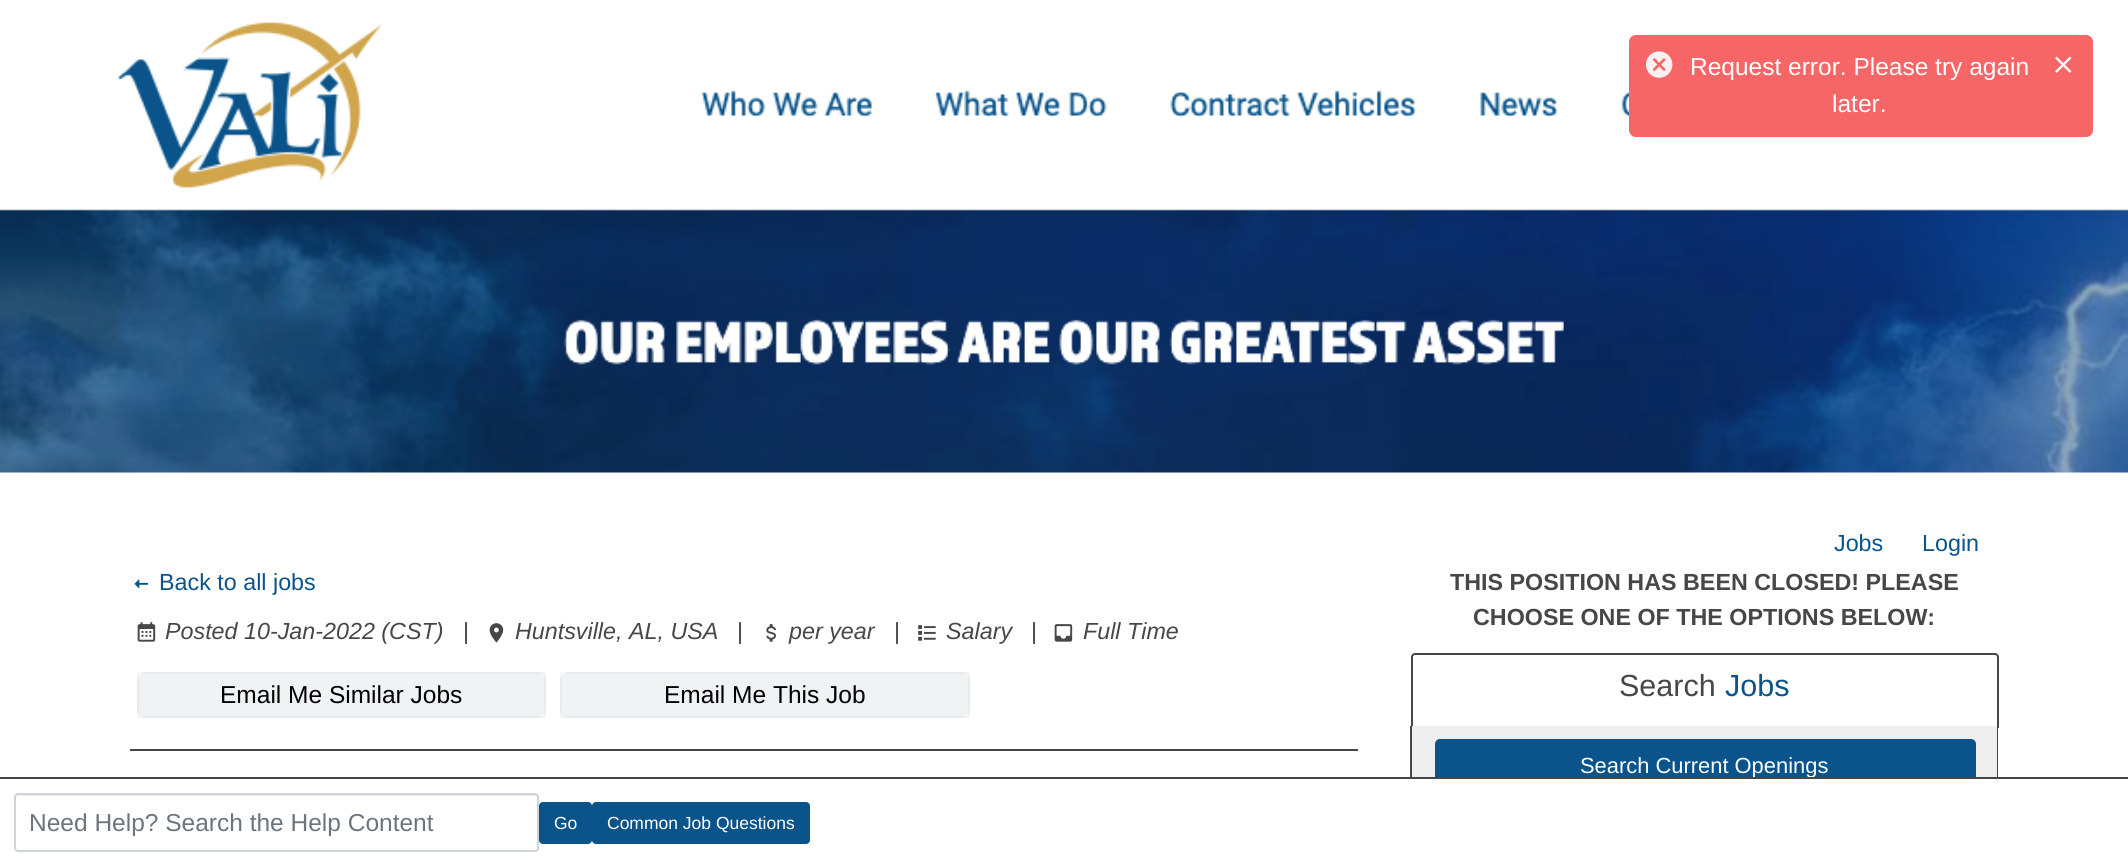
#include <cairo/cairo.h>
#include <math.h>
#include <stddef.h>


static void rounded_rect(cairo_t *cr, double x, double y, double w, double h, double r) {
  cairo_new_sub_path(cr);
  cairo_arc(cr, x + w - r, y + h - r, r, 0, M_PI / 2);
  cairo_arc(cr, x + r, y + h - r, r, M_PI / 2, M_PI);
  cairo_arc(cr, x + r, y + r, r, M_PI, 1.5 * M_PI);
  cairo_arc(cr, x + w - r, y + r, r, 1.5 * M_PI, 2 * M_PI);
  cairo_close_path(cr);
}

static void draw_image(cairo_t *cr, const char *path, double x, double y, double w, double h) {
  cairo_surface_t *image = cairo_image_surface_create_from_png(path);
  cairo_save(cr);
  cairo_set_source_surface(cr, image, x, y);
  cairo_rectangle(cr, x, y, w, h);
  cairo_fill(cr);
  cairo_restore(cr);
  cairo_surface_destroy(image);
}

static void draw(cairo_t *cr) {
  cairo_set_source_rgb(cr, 1, 1, 1);
  cairo_paint(cr);
  draw_image(cr, "images/1.png", 0, 209, 2128, 264);
  draw_image(cr, "images/4.png", 118, 22, 1787, 166);
  cairo_set_source_rgb(cr, 246 / 255.0, 85 / 255.0, 85 / 255.0);
  rounded_rect(cr, 1629, 35, 464, 102, 7);
  cairo_fill(cr);
  draw_image(cr, "images/2.png", 1645, 51, 28, 27);
  cairo_set_source_rgba(cr, 1, 1, 1, 0.1);
  rounded_rect(cr, 1629, 35, 464, 102, 7);
  cairo_fill(cr);
  draw_image(cr, "images/3.png", 2055, 56, 17, 17);
  draw_image(cr, "images/5.png", 134, 579, 14, 10);
  draw_image(cr, "images/6.png", 137, 622, 19, 20);
  draw_image(cr, "images/7.png", 489, 623, 15, 20);
  draw_image(cr, "images/8.png", 766, 624, 10, 18);
  draw_image(cr, "images/9.png", 918, 625, 18, 16);
  draw_image(cr, "images/10.png", 1054, 624, 19, 18);
  cairo_set_source_rgb(cr, 240 / 255.0, 243 / 255.0, 244 / 255.0);
  rounded_rect(cr, 137, 672, 409, 46, 9);
  cairo_fill(cr);
  cairo_rectangle(cr, 138, 673, 407, 44);
  cairo_set_source_rgba(cr, 0, 0, 0, 0.04);
  cairo_stroke(cr);
  cairo_set_source_rgb(cr, 240 / 255.0, 243 / 255.0, 244 / 255.0);
  rounded_rect(cr, 560, 672, 410, 46, 9);
  cairo_fill(cr);
  cairo_rectangle(cr, 561, 673, 408, 44);
  cairo_set_source_rgba(cr, 0, 0, 0, 0.04);
  cairo_stroke(cr);
  cairo_set_source_rgb(cr, 71 / 255.0, 71 / 255.0, 71 / 255.0);
  cairo_rectangle(cr, 130, 749, 1228, 2);
  cairo_fill(cr);
  cairo_new_path(cr);
  cairo_move_to(cr, 1415, 654);
  cairo_line_to(cr, 1995, 654);
  cairo_curve_to(cr, 1996.5, 654, 1998, 655.5, 1998, 657);
  cairo_line_to(cr, 1998, 727);
  cairo_line_to(cr, 1412, 727);
  cairo_line_to(cr, 1412, 657);
  cairo_curve_to(cr, 1412, 655.5, 1413.5, 654, 1415, 654);
  cairo_close_path(cr);
  cairo_stroke(cr);
  cairo_set_source_rgb(cr, 238 / 255.0, 238 / 255.0, 238 / 255.0);
  cairo_rectangle(cr, 1412, 726, 585, 51);
  cairo_fill(cr);
  cairo_set_source_rgb(cr, 71 / 255.0, 71 / 255.0, 71 / 255.0);
  cairo_set_fill_rule(cr, CAIRO_FILL_RULE_EVEN_ODD);
  cairo_new_path(cr);
  cairo_move_to(cr, 1410, 726);
  cairo_line_to(cr, 1998, 726);
  cairo_line_to(cr, 1998, 804);
  cairo_curve_to(cr, 1998, 807, 1997, 808, 1994, 808);
  cairo_line_to(cr, 1415, 808);
  cairo_curve_to(cr, 1412, 808, 1410, 807, 1410, 804);
  cairo_close_path(cr);
  cairo_move_to(cr, 1412, 726);
  cairo_line_to(cr, 1997, 726);
  cairo_line_to(cr, 1997, 804);
  cairo_curve_to(cr, 1997, 806, 1996, 807, 1994, 807);
  cairo_line_to(cr, 1415, 807);
  cairo_curve_to(cr, 1413, 807, 1412, 806, 1412, 804);
  cairo_close_path(cr);
  cairo_fill(cr);
  cairo_set_source_rgb(cr, 11 / 255.0, 84 / 255.0, 139 / 255.0);
  rounded_rect(cr, 1435, 739, 541, 54, 5);
  cairo_fill(cr);
  cairo_set_source_rgb(cr, 1, 1, 1);
  cairo_rectangle(cr, 1410, 779, 588, 29);
  cairo_fill(cr);
  cairo_set_source_rgb(cr, 236 / 255.0, 236 / 255.0, 236 / 255.0);
  cairo_set_fill_rule(cr, CAIRO_FILL_RULE_WINDING);
  cairo_new_path(cr);
  cairo_move_to(cr, 18, 796);
  cairo_line_to(cr, 535, 796);
  cairo_curve_to(cr, 536, 796, 537, 797, 537, 799);
  cairo_curve_to(cr, 537, 797, 537, 795, 534, 795);
  cairo_line_to(cr, 18, 795);
  cairo_curve_to(cr, 16, 795, 16, 797, 16, 799);
  cairo_curve_to(cr, 16, 797, 17, 796, 18, 796);
  cairo_close_path(cr);
  cairo_fill(cr);
  rounded_rect(cr, 15, 794, 523, 57, 3);
  cairo_set_source_rgb(cr, 206 / 255.0, 212 / 255.0, 218 / 255.0);
  cairo_stroke(cr);
  cairo_set_source_rgb(cr, 11 / 255.0, 84 / 255.0, 139 / 255.0);
  rounded_rect(cr, 539, 802, 53, 42, 4);
  cairo_fill(cr);
  rounded_rect(cr, 592, 802, 218, 42, 4);
  cairo_fill(cr);
  cairo_select_font_face(cr, "Liberation Sans", CAIRO_FONT_SLANT_NORMAL, CAIRO_FONT_WEIGHT_NORMAL);
  cairo_set_font_size(cr, 24.5);
  cairo_set_source_rgb(cr, 1, 1, 1);
  cairo_move_to(cr, 1690, 75);
  cairo_show_text(cr, "Request error. Please try again");
  cairo_move_to(cr, 1832, 112);
  cairo_show_text(cr, "later.");
  cairo_set_font_size(cr, 23.3);
  cairo_set_source_rgb(cr, 11 / 255.0, 84 / 255.0, 139 / 255.0);
  cairo_move_to(cr, 1834, 551);
  cairo_show_text(cr, "Jobs");
  cairo_move_to(cr, 1922, 551);
  cairo_show_text(cr, "Login");
  cairo_move_to(cr, 159, 590);
  cairo_show_text(cr, "Back to all jobs");
  cairo_select_font_face(cr, "Liberation Sans", CAIRO_FONT_SLANT_ITALIC, CAIRO_FONT_WEIGHT_NORMAL);
  cairo_set_source_rgb(cr, 71 / 255.0, 71 / 255.0, 71 / 255.0);
  cairo_move_to(cr, 165, 639);
  cairo_show_text(cr, "Posted 10-Jan-2022 (CST)");
  cairo_select_font_face(cr, "Liberation Sans", CAIRO_FONT_SLANT_NORMAL, CAIRO_FONT_WEIGHT_NORMAL);
  cairo_move_to(cr, 463, 639);
  cairo_show_text(cr, "|");
  cairo_select_font_face(cr, "Liberation Sans", CAIRO_FONT_SLANT_ITALIC, CAIRO_FONT_WEIGHT_NORMAL);
  cairo_move_to(cr, 515, 639);
  cairo_show_text(cr, "Huntsville, AL, USA");
  cairo_select_font_face(cr, "Liberation Sans", CAIRO_FONT_SLANT_NORMAL, CAIRO_FONT_WEIGHT_NORMAL);
  cairo_move_to(cr, 737, 639);
  cairo_show_text(cr, "|");
  cairo_select_font_face(cr, "Liberation Sans", CAIRO_FONT_SLANT_ITALIC, CAIRO_FONT_WEIGHT_NORMAL);
  cairo_move_to(cr, 789, 639);
  cairo_show_text(cr, "per year");
  cairo_select_font_face(cr, "Liberation Sans", CAIRO_FONT_SLANT_NORMAL, CAIRO_FONT_WEIGHT_NORMAL);
  cairo_move_to(cr, 894, 639);
  cairo_show_text(cr, "|");
  cairo_select_font_face(cr, "Liberation Sans", CAIRO_FONT_SLANT_ITALIC, CAIRO_FONT_WEIGHT_NORMAL);
  cairo_move_to(cr, 946, 639);
  cairo_show_text(cr, "Salary");
  cairo_select_font_face(cr, "Liberation Sans", CAIRO_FONT_SLANT_NORMAL, CAIRO_FONT_WEIGHT_NORMAL);
  cairo_move_to(cr, 1031, 639);
  cairo_show_text(cr, "|");
  cairo_select_font_face(cr, "Liberation Sans", CAIRO_FONT_SLANT_ITALIC, CAIRO_FONT_WEIGHT_NORMAL);
  cairo_move_to(cr, 1083, 639);
  cairo_show_text(cr, "Full Time");
  cairo_select_font_face(cr, "Liberation Sans", CAIRO_FONT_SLANT_NORMAL, CAIRO_FONT_WEIGHT_NORMAL);
  cairo_set_font_size(cr, 24.5);
  cairo_set_source_rgb(cr, 0, 0, 0);
  cairo_move_to(cr, 220, 703);
  cairo_show_text(cr, "Email Me Similar Jobs");
  cairo_move_to(cr, 664, 703);
  cairo_show_text(cr, "Email Me This Job");
  cairo_select_font_face(cr, "Liberation Sans", CAIRO_FONT_SLANT_NORMAL, CAIRO_FONT_WEIGHT_BOLD);
  cairo_set_font_size(cr, 23.3);
  cairo_set_source_rgb(cr, 71 / 255.0, 71 / 255.0, 71 / 255.0);
  cairo_move_to(cr, 1450, 590);
  cairo_show_text(cr, "THIS POSITION HAS BEEN CLOSED! PLEASE");
  cairo_move_to(cr, 1473, 625);
  cairo_show_text(cr, "CHOOSE ONE OF THE OPTIONS BELOW:");
  cairo_select_font_face(cr, "Liberation Sans", CAIRO_FONT_SLANT_NORMAL, CAIRO_FONT_WEIGHT_NORMAL);
  cairo_set_font_size(cr, 30.5);
  cairo_move_to(cr, 1619, 696);
  cairo_show_text(cr, "Search");
  cairo_set_source_rgb(cr, 11 / 255.0, 84 / 255.0, 139 / 255.0);
  cairo_move_to(cr, 1725, 696);
  cairo_show_text(cr, "Jobs");
  cairo_set_font_size(cr, 21.9);
  cairo_set_source_rgb(cr, 1, 1, 1);
  cairo_move_to(cr, 1580, 773);
  cairo_show_text(cr, "Search Current Openings");
  cairo_set_source_rgb(cr, 71 / 255.0, 71 / 255.0, 71 / 255.0);
  cairo_rectangle(cr, 0, 777, 2128, 2);
  cairo_fill(cr);
  cairo_set_font_size(cr, 24.5);
  cairo_set_source_rgb(cr, 108 / 255.0, 117 / 255.0, 125 / 255.0);
  cairo_move_to(cr, 29, 831);
  cairo_show_text(cr, "Need Help? Search the Help Content");
  cairo_set_font_size(cr, 17.5);
  cairo_set_source_rgb(cr, 1, 1, 1);
  cairo_move_to(cr, 554, 829);
  cairo_show_text(cr, "Go");
  cairo_move_to(cr, 607, 829);
  cairo_show_text(cr, "Common Job Questions");
}

int main(void) {
  cairo_surface_t *surface = cairo_image_surface_create(CAIRO_FORMAT_RGB24, 2128, 866);
  cairo_t *cr = cairo_create(surface);
  cairo_font_options_t *options = cairo_font_options_create();
  cairo_font_options_set_hint_metrics(options, CAIRO_HINT_METRICS_OFF);
  cairo_font_options_set_hint_style(options, CAIRO_HINT_STYLE_NONE);
  cairo_set_font_options(cr, options);
  cairo_set_miter_limit(cr, 4);
  draw(cr);
  cairo_surface_write_to_png(surface, "out.png");
  cairo_font_options_destroy(options);
  cairo_destroy(cr);
  cairo_surface_destroy(surface);
  return 0;
}
